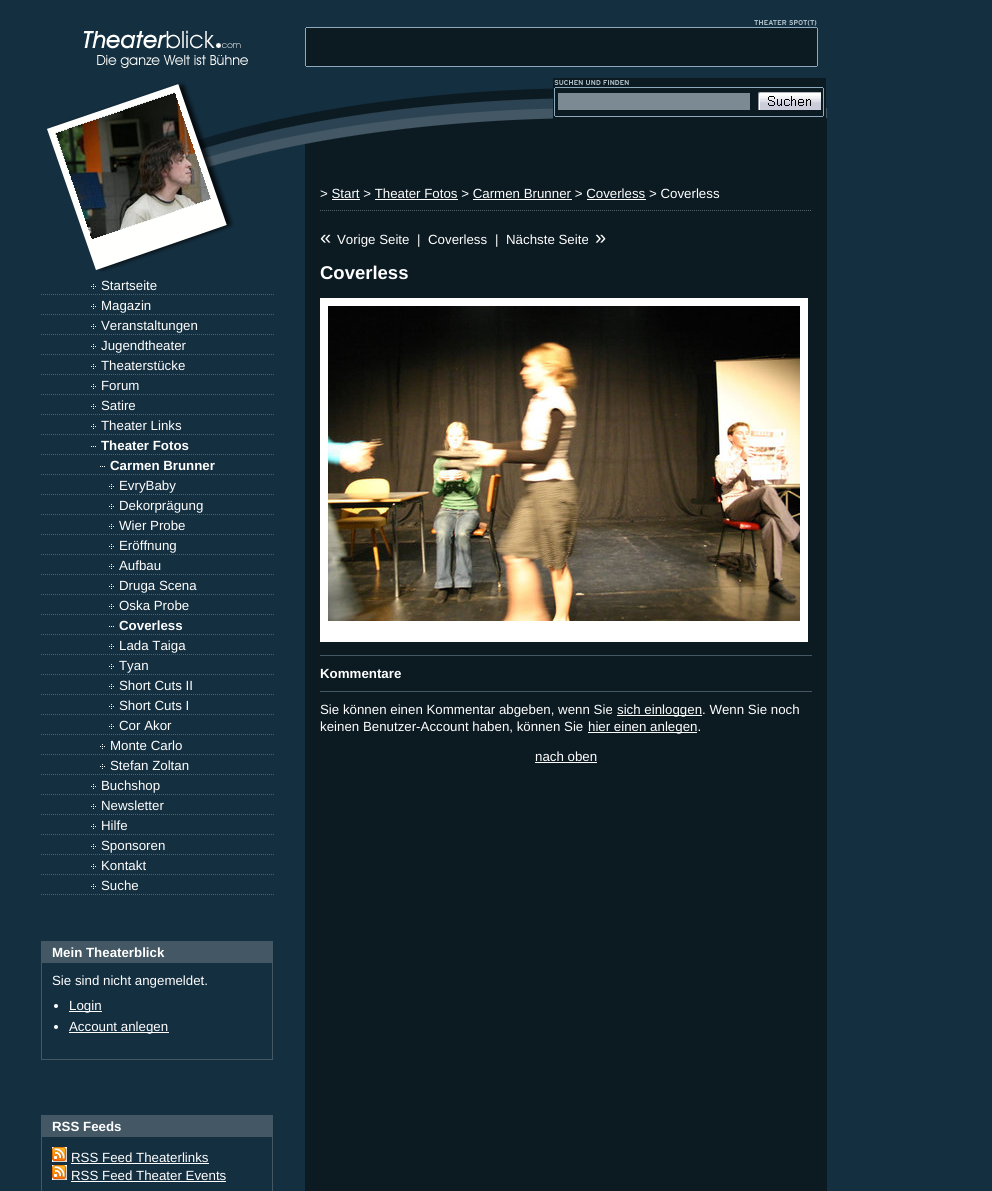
#include <cairo/cairo.h>
#include <math.h>
#include <stddef.h>


static void draw_image(cairo_t *cr, const char *path, double x, double y, double w, double h) {
  cairo_surface_t *image = cairo_image_surface_create_from_png(path);
  cairo_save(cr);
  cairo_set_source_surface(cr, image, x, y);
  cairo_rectangle(cr, x, y, w, h);
  cairo_fill(cr);
  cairo_restore(cr);
  cairo_surface_destroy(image);
}

static void draw(cairo_t *cr) {
  cairo_set_source_rgb(cr, 20 / 255.0, 47 / 255.0, 64 / 255.0);
  cairo_paint(cr);
  draw_image(cr, "images/1.png", 83, 30, 165, 38);
  draw_image(cr, "images/2.png", 305, 20, 513, 47);
  draw_image(cr, "images/3.png", 56, 93, 155, 146);
  draw_image(cr, "images/4.png", 41, 78, 264, 197);
  draw_image(cr, "images/5.png", 41, 294, 233, 601);
  draw_image(cr, "images/6.png", 91, 284, 5, 5);
  draw_image(cr, "images/6.png", 91, 304, 5, 5);
  draw_image(cr, "images/6.png", 91, 324, 5, 5);
  draw_image(cr, "images/6.png", 91, 344, 5, 5);
  draw_image(cr, "images/6.png", 91, 364, 5, 5);
  draw_image(cr, "images/6.png", 91, 384, 5, 5);
  draw_image(cr, "images/6.png", 91, 404, 5, 5);
  draw_image(cr, "images/6.png", 91, 424, 5, 5);
  draw_image(cr, "images/7.png", 91, 446, 5, 1);
  draw_image(cr, "images/7.png", 100, 466, 5, 1);
  draw_image(cr, "images/6.png", 109, 484, 5, 5);
  draw_image(cr, "images/6.png", 109, 504, 5, 5);
  draw_image(cr, "images/6.png", 109, 524, 5, 5);
  draw_image(cr, "images/6.png", 109, 544, 5, 5);
  draw_image(cr, "images/6.png", 109, 564, 5, 5);
  draw_image(cr, "images/6.png", 109, 584, 5, 5);
  draw_image(cr, "images/6.png", 109, 604, 5, 5);
  draw_image(cr, "images/7.png", 109, 626, 5, 1);
  draw_image(cr, "images/6.png", 109, 644, 5, 5);
  draw_image(cr, "images/6.png", 109, 664, 5, 5);
  draw_image(cr, "images/6.png", 109, 684, 5, 5);
  draw_image(cr, "images/6.png", 109, 704, 5, 5);
  draw_image(cr, "images/6.png", 109, 724, 5, 5);
  draw_image(cr, "images/6.png", 100, 744, 5, 5);
  draw_image(cr, "images/6.png", 100, 764, 5, 5);
  draw_image(cr, "images/6.png", 91, 784, 5, 5);
  draw_image(cr, "images/6.png", 91, 804, 5, 5);
  draw_image(cr, "images/6.png", 91, 824, 5, 5);
  draw_image(cr, "images/6.png", 91, 844, 5, 5);
  draw_image(cr, "images/6.png", 91, 864, 5, 5);
  draw_image(cr, "images/6.png", 91, 884, 5, 5);
  cairo_rectangle(cr, 41.5, 941.5, 231, 118);
  cairo_set_source_rgb(cr, 67 / 255.0, 88 / 255.0, 100 / 255.0);
  cairo_set_line_width(cr, 1);
  cairo_stroke(cr);
  cairo_rectangle(cr, 42, 942, 230, 21);
  cairo_fill(cr);
  cairo_set_source_rgb(cr, 1, 1, 1);
  cairo_arc(cr, 56, 1006, 2, 0, 2 * M_PI);
  cairo_fill(cr);
  cairo_rectangle(cr, 69, 1011, 33, 1);
  cairo_fill(cr);
  cairo_arc(cr, 56, 1027, 2, 0, 2 * M_PI);
  cairo_fill(cr);
  cairo_rectangle(cr, 69, 1032, 100, 1);
  cairo_fill(cr);
  cairo_rectangle(cr, 41.5, 1115.5, 231, 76);
  cairo_set_source_rgb(cr, 67 / 255.0, 88 / 255.0, 100 / 255.0);
  cairo_stroke(cr);
  cairo_rectangle(cr, 42, 1116, 230, 21);
  cairo_fill(cr);
  draw_image(cr, "images/8.png", 52, 1147, 15, 15);
  cairo_set_source_rgb(cr, 1, 1, 1);
  cairo_rectangle(cr, 71, 1163, 138, 1);
  cairo_fill(cr);
  draw_image(cr, "images/8.png", 52, 1165, 15, 15);
  cairo_rectangle(cr, 71, 1181, 155, 1);
  cairo_fill(cr);
  cairo_set_source_rgb(cr, 12 / 255.0, 26 / 255.0, 34 / 255.0);
  cairo_rectangle(cr, 305, 144, 522, 1047);
  cairo_fill(cr);
  draw_image(cr, "images/9.png", 305, 78, 522, 66);
  draw_image(cr, "images/10.png", 553, 78, 273, 41);
  cairo_set_source_rgb(cr, 123 / 255.0, 138 / 255.0, 147 / 255.0);
  cairo_rectangle(cr, 558, 93, 192, 17);
  cairo_fill(cr);
  draw_image(cr, "images/11.png", 758, 92, 63, 18);
  draw_image(cr, "images/12.png", 320, 210, 491, 1);
  cairo_set_source_rgb(cr, 1, 1, 1);
  cairo_rectangle(cr, 332, 199, 28, 1);
  cairo_fill(cr);
  cairo_rectangle(cr, 375, 199, 83, 1);
  cairo_fill(cr);
  cairo_rectangle(cr, 473, 199, 99, 1);
  cairo_fill(cr);
  cairo_rectangle(cr, 587, 199, 59, 1);
  cairo_fill(cr);
  cairo_rectangle(cr, 320, 298, 488, 8);
  cairo_fill(cr);
  cairo_rectangle(cr, 800, 298, 8, 323);
  cairo_fill(cr);
  cairo_rectangle(cr, 328, 621, 480, 21);
  cairo_fill(cr);
  cairo_rectangle(cr, 320, 298, 8, 344);
  cairo_fill(cr);
  draw_image(cr, "images/13.png", 328, 306, 472, 315);
  cairo_set_source_rgb(cr, 67 / 255.0, 88 / 255.0, 100 / 255.0);
  cairo_rectangle(cr, 320, 655, 492, 1);
  cairo_fill(cr);
  cairo_rectangle(cr, 320, 691, 492, 1);
  cairo_fill(cr);
  cairo_set_source_rgb(cr, 1, 1, 1);
  cairo_rectangle(cr, 617, 715, 85, 1);
  cairo_fill(cr);
  cairo_rectangle(cr, 588, 732, 109, 1);
  cairo_fill(cr);
  cairo_rectangle(cr, 535, 762, 62, 1);
  cairo_fill(cr);
  cairo_select_font_face(cr, "Liberation Sans", CAIRO_FONT_SLANT_NORMAL, CAIRO_FONT_WEIGHT_NORMAL);
  cairo_set_font_size(cr, 13.3);
  cairo_move_to(cr, 101, 290);
  cairo_show_text(cr, "Startseite");
  cairo_move_to(cr, 101, 310);
  cairo_show_text(cr, "Magazin");
  cairo_move_to(cr, 101, 330);
  cairo_show_text(cr, "Veranstaltungen");
  cairo_move_to(cr, 101, 350);
  cairo_show_text(cr, "Jugendtheater");
  cairo_move_to(cr, 101, 370);
  cairo_show_text(cr, "Theaterstücke");
  cairo_move_to(cr, 101, 390);
  cairo_show_text(cr, "Forum");
  cairo_move_to(cr, 101, 410);
  cairo_show_text(cr, "Satire");
  cairo_move_to(cr, 101, 430);
  cairo_show_text(cr, "Theater Links");
  cairo_select_font_face(cr, "Liberation Sans", CAIRO_FONT_SLANT_NORMAL, CAIRO_FONT_WEIGHT_BOLD);
  cairo_move_to(cr, 101, 450);
  cairo_show_text(cr, "Theater Fotos");
  cairo_move_to(cr, 110, 470);
  cairo_show_text(cr, "Carmen Brunner");
  cairo_select_font_face(cr, "Liberation Sans", CAIRO_FONT_SLANT_NORMAL, CAIRO_FONT_WEIGHT_NORMAL);
  cairo_move_to(cr, 119, 490);
  cairo_show_text(cr, "EvryBaby");
  cairo_move_to(cr, 119, 510);
  cairo_show_text(cr, "Dekorprägung");
  cairo_move_to(cr, 119, 530);
  cairo_show_text(cr, "Wier Probe");
  cairo_move_to(cr, 119, 550);
  cairo_show_text(cr, "Eröffnung");
  cairo_move_to(cr, 119, 570);
  cairo_show_text(cr, "Aufbau");
  cairo_move_to(cr, 119, 590);
  cairo_show_text(cr, "Druga Scena");
  cairo_move_to(cr, 119, 610);
  cairo_show_text(cr, "Oska Probe");
  cairo_select_font_face(cr, "Liberation Sans", CAIRO_FONT_SLANT_NORMAL, CAIRO_FONT_WEIGHT_BOLD);
  cairo_move_to(cr, 119, 630);
  cairo_show_text(cr, "Coverless");
  cairo_select_font_face(cr, "Liberation Sans", CAIRO_FONT_SLANT_NORMAL, CAIRO_FONT_WEIGHT_NORMAL);
  cairo_move_to(cr, 119, 650);
  cairo_show_text(cr, "Lada Taiga");
  cairo_move_to(cr, 119, 670);
  cairo_show_text(cr, "Tyan");
  cairo_move_to(cr, 119, 690);
  cairo_show_text(cr, "Short Cuts II");
  cairo_move_to(cr, 119, 710);
  cairo_show_text(cr, "Short Cuts I");
  cairo_move_to(cr, 119, 730);
  cairo_show_text(cr, "Cor Akor");
  cairo_move_to(cr, 110, 750);
  cairo_show_text(cr, "Monte Carlo");
  cairo_move_to(cr, 110, 770);
  cairo_show_text(cr, "Stefan Zoltan");
  cairo_move_to(cr, 101, 790);
  cairo_show_text(cr, "Buchshop");
  cairo_move_to(cr, 101, 810);
  cairo_show_text(cr, "Newsletter");
  cairo_move_to(cr, 101, 830);
  cairo_show_text(cr, "Hilfe");
  cairo_move_to(cr, 101, 850);
  cairo_show_text(cr, "Sponsoren");
  cairo_move_to(cr, 101, 870);
  cairo_show_text(cr, "Kontakt");
  cairo_move_to(cr, 101, 890);
  cairo_show_text(cr, "Suche");
  cairo_select_font_face(cr, "Liberation Sans", CAIRO_FONT_SLANT_NORMAL, CAIRO_FONT_WEIGHT_BOLD);
  cairo_move_to(cr, 52, 957);
  cairo_show_text(cr, "Mein Theaterblick");
  cairo_select_font_face(cr, "Liberation Sans", CAIRO_FONT_SLANT_NORMAL, CAIRO_FONT_WEIGHT_NORMAL);
  cairo_move_to(cr, 52, 985);
  cairo_show_text(cr, "Sie sind nicht angemeldet.");
  cairo_move_to(cr, 69, 1010);
  cairo_show_text(cr, "Login");
  cairo_move_to(cr, 69, 1031);
  cairo_show_text(cr, "Account anlegen");
  cairo_select_font_face(cr, "Liberation Sans", CAIRO_FONT_SLANT_NORMAL, CAIRO_FONT_WEIGHT_BOLD);
  cairo_move_to(cr, 52, 1131);
  cairo_show_text(cr, "RSS Feeds");
  cairo_select_font_face(cr, "Liberation Sans", CAIRO_FONT_SLANT_NORMAL, CAIRO_FONT_WEIGHT_NORMAL);
  cairo_move_to(cr, 71, 1162);
  cairo_show_text(cr, "RSS Feed Theaterlinks");
  cairo_move_to(cr, 71, 1180);
  cairo_show_text(cr, "RSS Feed Theater Events");
  cairo_move_to(cr, 320, 198);
  cairo_show_text(cr, "> Start > Theater Fotos > Carmen Brunner > Coverless > Coverless");
  cairo_set_font_size(cr, 20);
  cairo_move_to(cr, 320, 244);
  cairo_show_text(cr, "«");
  cairo_set_font_size(cr, 13.3);
  cairo_move_to(cr, 337, 244);
  cairo_show_text(cr, "Vorige Seite");
  cairo_move_to(cr, 417, 244);
  cairo_show_text(cr, "|");
  cairo_move_to(cr, 428, 244);
  cairo_show_text(cr, "Coverless");
  cairo_move_to(cr, 495, 244);
  cairo_show_text(cr, "|");
  cairo_move_to(cr, 506, 244);
  cairo_show_text(cr, "Nächste Seite");
  cairo_set_font_size(cr, 20);
  cairo_move_to(cr, 595, 244);
  cairo_show_text(cr, "»");
  cairo_select_font_face(cr, "Liberation Sans", CAIRO_FONT_SLANT_NORMAL, CAIRO_FONT_WEIGHT_BOLD);
  cairo_set_font_size(cr, 18.5);
  cairo_move_to(cr, 320, 279);
  cairo_show_text(cr, "Coverless");
  cairo_set_font_size(cr, 13.3);
  cairo_move_to(cr, 320, 678);
  cairo_show_text(cr, "Kommentare");
  cairo_select_font_face(cr, "Liberation Sans", CAIRO_FONT_SLANT_NORMAL, CAIRO_FONT_WEIGHT_NORMAL);
  cairo_move_to(cr, 320, 714);
  cairo_show_text(cr, "Sie können einen Kommentar abgeben, wenn Sie");
  cairo_move_to(cr, 617, 714);
  cairo_show_text(cr, "sich einloggen. Wenn Sie noch");
  cairo_move_to(cr, 320, 731);
  cairo_show_text(cr, "keinen Benutzer-Account haben, können Sie");
  cairo_move_to(cr, 588, 731);
  cairo_show_text(cr, "hier einen anlegen.");
  cairo_move_to(cr, 535, 761);
  cairo_show_text(cr, "nach oben");
}

int main(void) {
  cairo_surface_t *surface = cairo_image_surface_create(CAIRO_FORMAT_RGB24, 992, 1191);
  cairo_t *cr = cairo_create(surface);
  cairo_font_options_t *options = cairo_font_options_create();
  cairo_font_options_set_hint_metrics(options, CAIRO_HINT_METRICS_OFF);
  cairo_font_options_set_hint_style(options, CAIRO_HINT_STYLE_NONE);
  cairo_set_font_options(cr, options);
  cairo_set_miter_limit(cr, 4);
  draw(cr);
  cairo_surface_write_to_png(surface, "out.png");
  cairo_font_options_destroy(options);
  cairo_destroy(cr);
  cairo_surface_destroy(surface);
  return 0;
}
